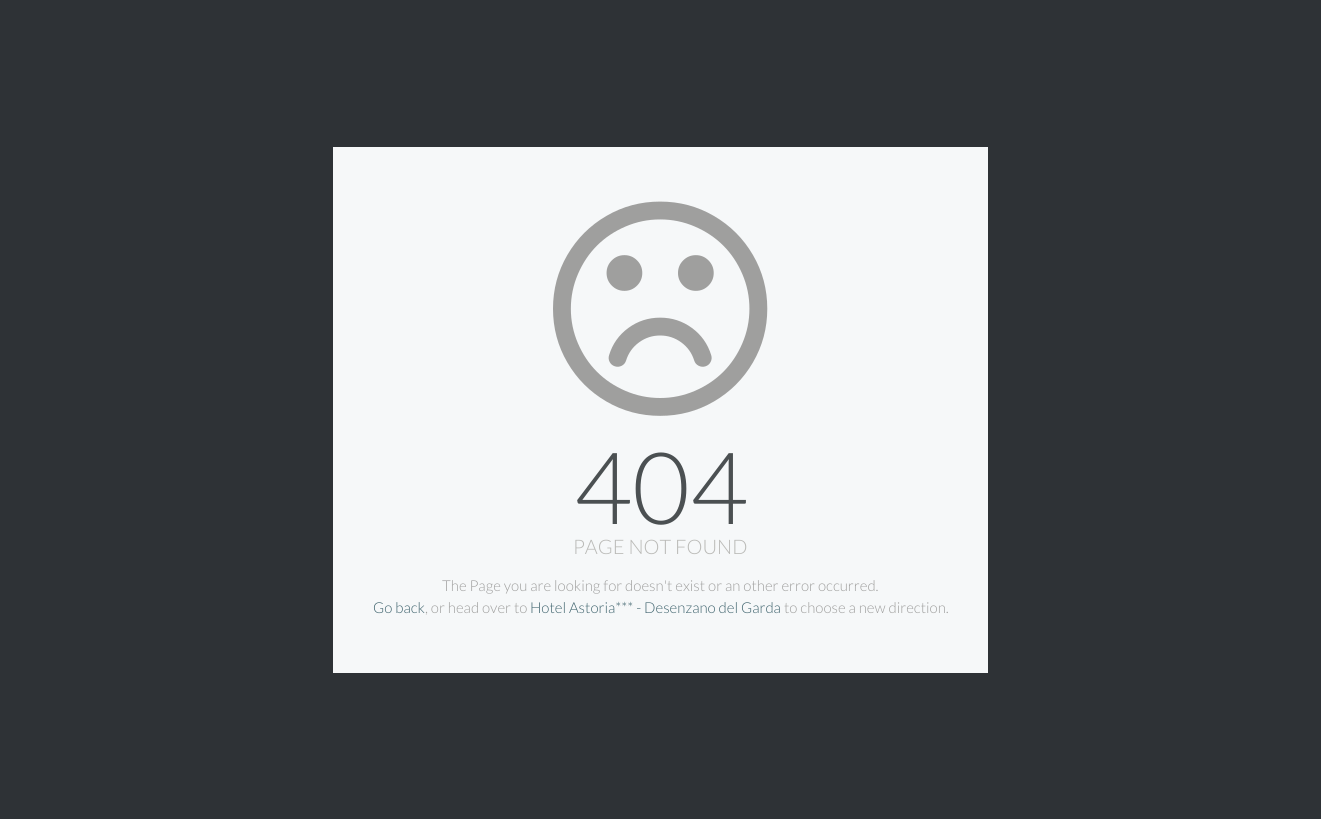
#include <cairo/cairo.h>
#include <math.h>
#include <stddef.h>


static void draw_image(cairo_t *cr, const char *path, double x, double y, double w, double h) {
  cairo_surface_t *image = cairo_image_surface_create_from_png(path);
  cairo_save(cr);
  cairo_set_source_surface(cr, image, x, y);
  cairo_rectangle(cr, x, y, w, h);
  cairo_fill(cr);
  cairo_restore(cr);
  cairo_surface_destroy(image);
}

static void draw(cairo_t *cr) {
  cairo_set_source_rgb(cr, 46 / 255.0, 50 / 255.0, 54 / 255.0);
  cairo_paint(cr);
  cairo_set_source_rgb(cr, 246 / 255.0, 248 / 255.0, 249 / 255.0);
  cairo_rectangle(cr, 333, 147, 655, 526);
  cairo_fill(cr);
  draw_image(cr, "images/1.png", 553, 201, 215, 215);
  cairo_select_font_face(cr, "Lato Light", CAIRO_FONT_SLANT_NORMAL, CAIRO_FONT_WEIGHT_NORMAL);
  cairo_set_font_size(cr, 100);
  cairo_set_source_rgb(cr, 75 / 255.0, 80 / 255.0, 82 / 255.0);
  cairo_move_to(cr, 574, 524);
  cairo_show_text(cr, "404");
  cairo_set_font_size(cr, 20);
  cairo_set_source_rgb(cr, 186 / 255.0, 186 / 255.0, 183 / 255.0);
  cairo_move_to(cr, 573, 554);
  cairo_show_text(cr, "PAGE NOT FOUND");
  cairo_set_font_size(cr, 15);
  cairo_set_source_rgb(cr, 159 / 255.0, 159 / 255.0, 158 / 255.0);
  cairo_move_to(cr, 442, 591);
  cairo_show_text(cr, "The Page you are looking for doesn't exist or an other error occurred.");
  cairo_set_source_rgb(cr, 65 / 255.0, 101 / 255.0, 111 / 255.0);
  cairo_move_to(cr, 373, 613);
  cairo_show_text(cr, "Go back");
  cairo_set_source_rgb(cr, 159 / 255.0, 159 / 255.0, 158 / 255.0);
  cairo_move_to(cr, 425, 613);
  cairo_show_text(cr, ", or head over to");
  cairo_set_source_rgb(cr, 65 / 255.0, 101 / 255.0, 111 / 255.0);
  cairo_move_to(cr, 530, 613);
  cairo_show_text(cr, "Hotel Astoria*** - Desenzano del Garda");
  cairo_set_source_rgb(cr, 159 / 255.0, 159 / 255.0, 158 / 255.0);
  cairo_move_to(cr, 784, 613);
  cairo_show_text(cr, "to choose a new direction.");
}

int main(void) {
  cairo_surface_t *surface = cairo_image_surface_create(CAIRO_FORMAT_RGB24, 1321, 819);
  cairo_t *cr = cairo_create(surface);
  cairo_font_options_t *options = cairo_font_options_create();
  cairo_font_options_set_hint_metrics(options, CAIRO_HINT_METRICS_OFF);
  cairo_font_options_set_hint_style(options, CAIRO_HINT_STYLE_NONE);
  cairo_set_font_options(cr, options);
  cairo_set_miter_limit(cr, 4);
  draw(cr);
  cairo_surface_write_to_png(surface, "out.png");
  cairo_font_options_destroy(options);
  cairo_destroy(cr);
  cairo_surface_destroy(surface);
  return 0;
}
